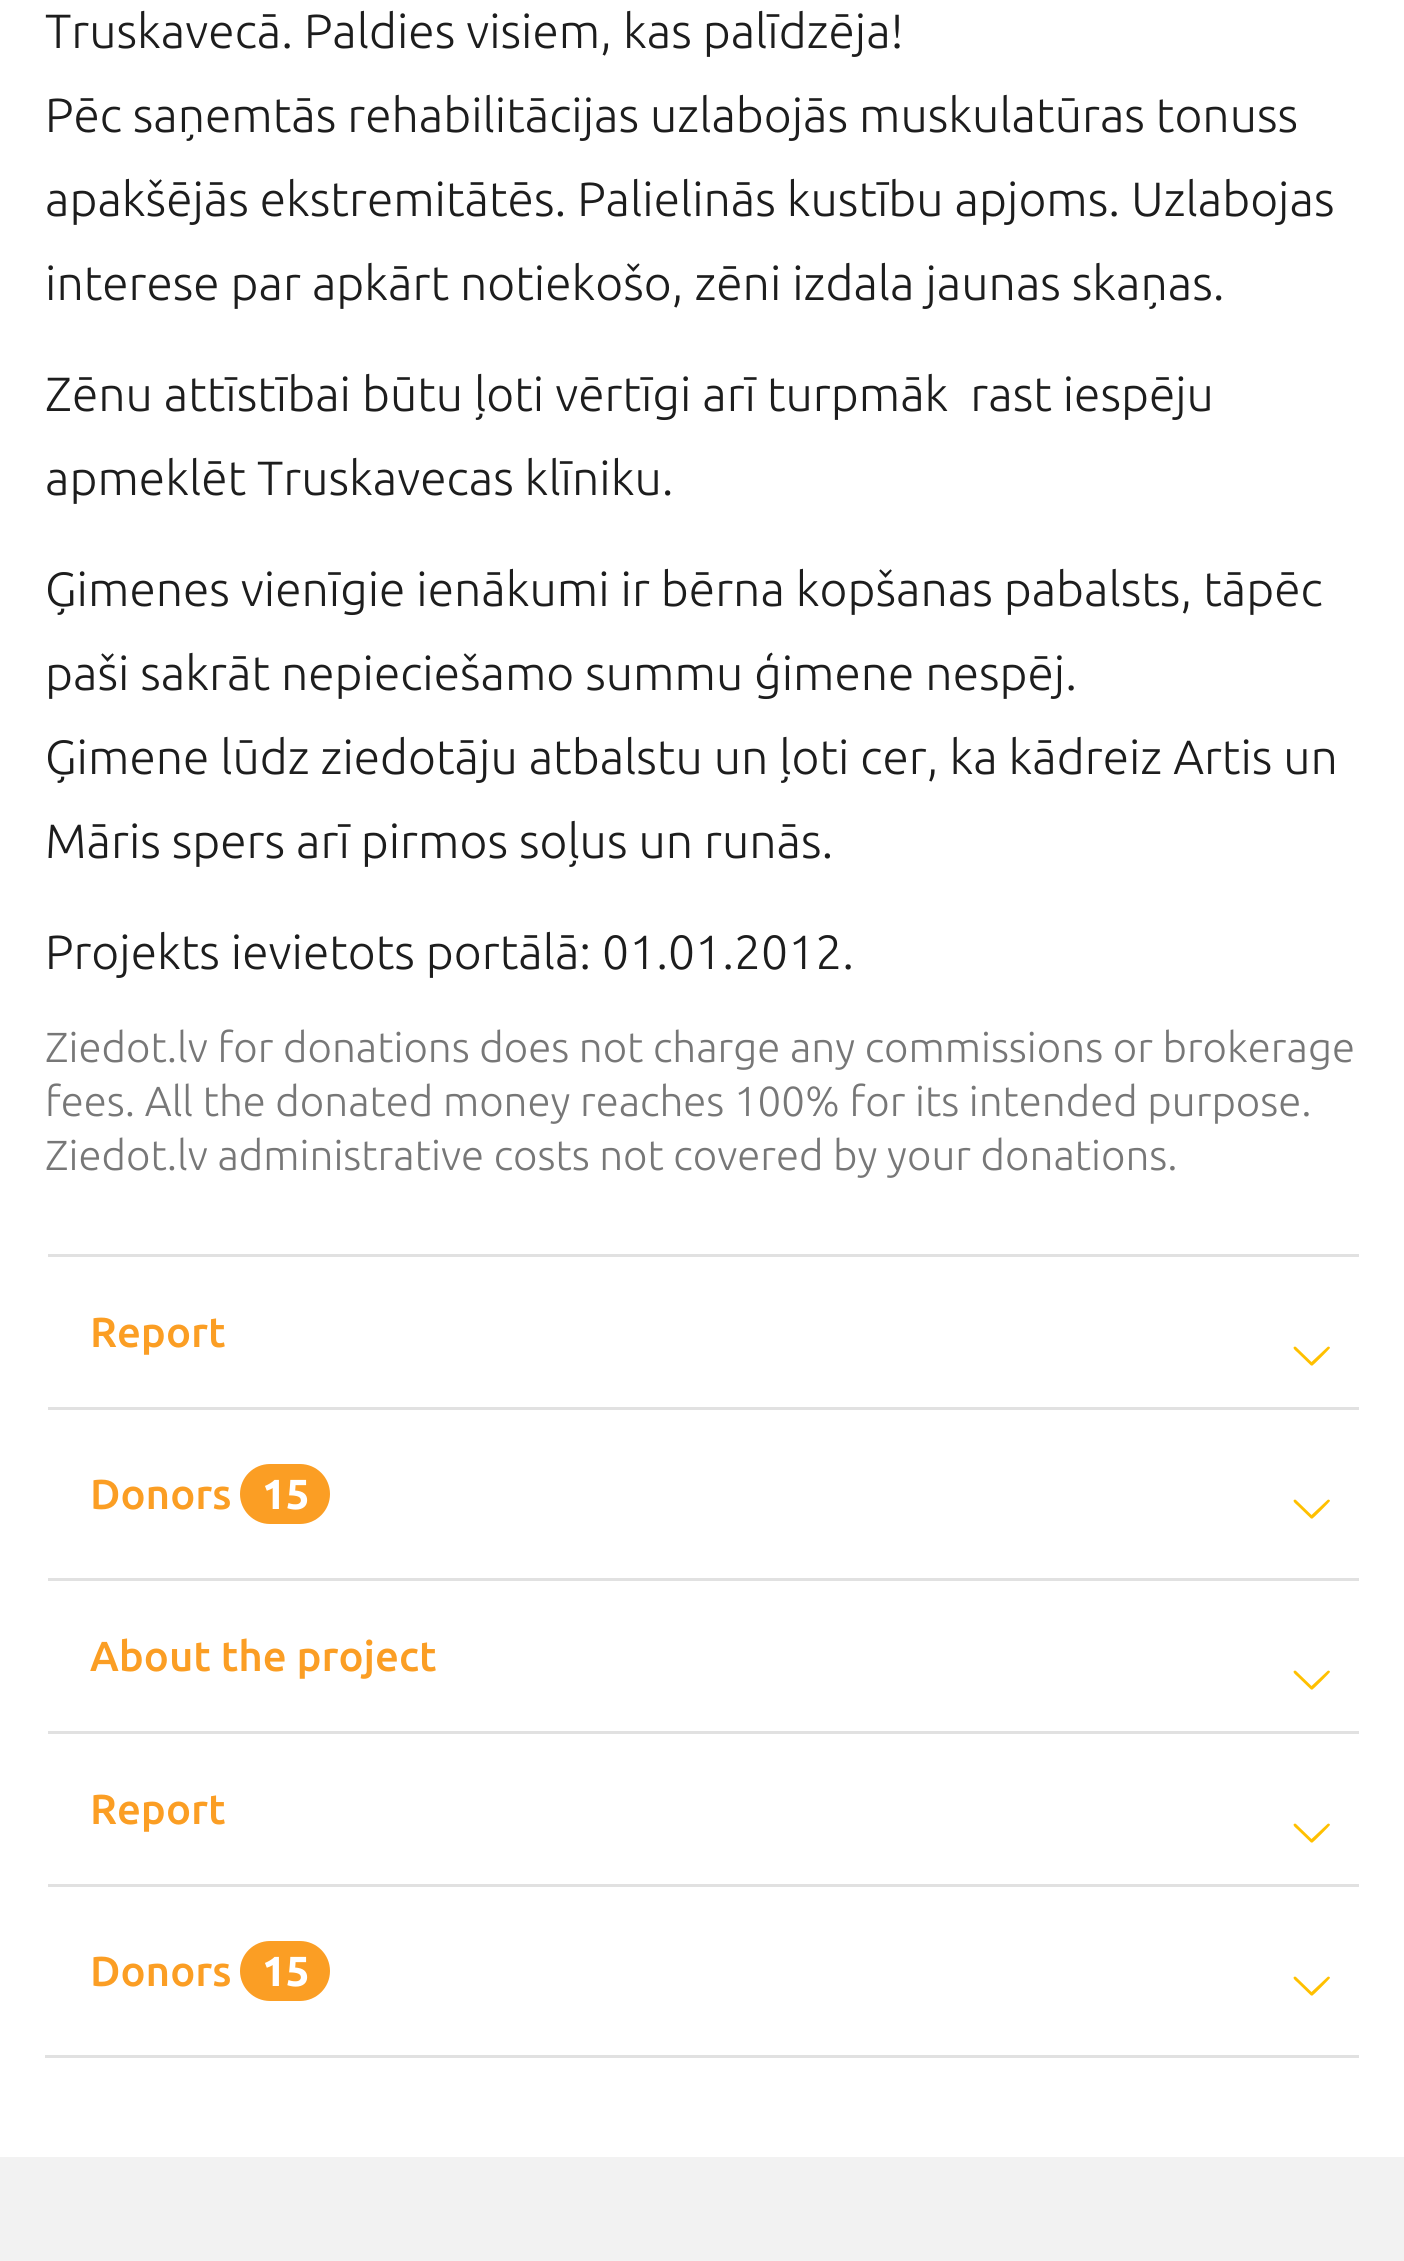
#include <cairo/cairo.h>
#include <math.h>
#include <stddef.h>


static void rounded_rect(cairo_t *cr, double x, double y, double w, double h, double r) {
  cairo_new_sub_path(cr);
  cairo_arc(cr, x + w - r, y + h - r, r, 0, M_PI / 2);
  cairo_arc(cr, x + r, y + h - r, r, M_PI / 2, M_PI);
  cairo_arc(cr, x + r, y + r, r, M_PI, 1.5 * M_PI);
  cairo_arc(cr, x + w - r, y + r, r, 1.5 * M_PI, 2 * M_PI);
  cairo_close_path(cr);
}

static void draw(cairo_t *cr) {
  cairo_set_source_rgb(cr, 1, 1, 1);
  cairo_paint(cr);
  cairo_set_source_rgb(cr, 225 / 255.0, 225 / 255.0, 225 / 255.0);
  cairo_rectangle(cr, 45, 2055, 1314, 3);
  cairo_fill(cr);
  cairo_rectangle(cr, 48, 1254, 1311, 3);
  cairo_fill(cr);
  cairo_set_source_rgb(cr, 1, 192 / 255.0, 0);
  cairo_new_path(cr);
  cairo_move_to(cr, 1296, 1347);
  cairo_line_to(cr, 1311.5, 1362);
  cairo_line_to(cr, 1327.5, 1347);
  cairo_curve_to(cr, 1328.5, 1346, 1330, 1347, 1330, 1348);
  cairo_curve_to(cr, 1330, 1348.5, 1314, 1364.5, 1312.5, 1365.5);
  cairo_line_to(cr, 1311, 1365.5);
  cairo_line_to(cr, 1297, 1352);
  cairo_curve_to(cr, 1296.5, 1351.5, 1291, 1347.5, 1295, 1346.5);
  cairo_close_path(cr);
  cairo_fill(cr);
  cairo_set_source_rgb(cr, 225 / 255.0, 225 / 255.0, 225 / 255.0);
  cairo_rectangle(cr, 48, 1407, 1311, 3);
  cairo_fill(cr);
  cairo_set_source_rgb(cr, 251 / 255.0, 158 / 255.0, 36 / 255.0);
  rounded_rect(cr, 240, 1464, 90, 60, 30);
  cairo_fill(cr);
  cairo_set_source_rgb(cr, 1, 192 / 255.0, 0);
  cairo_new_path(cr);
  cairo_move_to(cr, 1296, 1500);
  cairo_line_to(cr, 1311.5, 1515);
  cairo_line_to(cr, 1327.5, 1500);
  cairo_curve_to(cr, 1328.5, 1499, 1330, 1500, 1330, 1501);
  cairo_curve_to(cr, 1330, 1501.5, 1314, 1517.5, 1312.5, 1518.5);
  cairo_line_to(cr, 1311, 1518.5);
  cairo_line_to(cr, 1297, 1505);
  cairo_curve_to(cr, 1296.5, 1504.5, 1291, 1500.5, 1295, 1499.5);
  cairo_close_path(cr);
  cairo_fill(cr);
  cairo_set_source_rgb(cr, 225 / 255.0, 225 / 255.0, 225 / 255.0);
  cairo_rectangle(cr, 48, 1578, 1311, 3);
  cairo_fill(cr);
  cairo_set_source_rgb(cr, 1, 192 / 255.0, 0);
  cairo_new_path(cr);
  cairo_move_to(cr, 1296, 1671);
  cairo_line_to(cr, 1311.5, 1686);
  cairo_line_to(cr, 1327.5, 1671);
  cairo_curve_to(cr, 1328.5, 1670, 1330, 1671, 1330, 1672);
  cairo_curve_to(cr, 1330, 1672.5, 1314, 1688.5, 1312.5, 1689.5);
  cairo_line_to(cr, 1311, 1689.5);
  cairo_line_to(cr, 1297, 1676);
  cairo_curve_to(cr, 1296.5, 1675.5, 1291, 1671.5, 1295, 1670.5);
  cairo_close_path(cr);
  cairo_fill(cr);
  cairo_set_source_rgb(cr, 225 / 255.0, 225 / 255.0, 225 / 255.0);
  cairo_rectangle(cr, 48, 1731, 1311, 3);
  cairo_fill(cr);
  cairo_set_source_rgb(cr, 1, 192 / 255.0, 0);
  cairo_new_path(cr);
  cairo_move_to(cr, 1296, 1824);
  cairo_line_to(cr, 1311.5, 1839);
  cairo_line_to(cr, 1327.5, 1824);
  cairo_curve_to(cr, 1328.5, 1823, 1330, 1824, 1330, 1825);
  cairo_curve_to(cr, 1330, 1825.5, 1314, 1841.5, 1312.5, 1842.5);
  cairo_line_to(cr, 1311, 1842.5);
  cairo_line_to(cr, 1297, 1829);
  cairo_curve_to(cr, 1296.5, 1828.5, 1291, 1824.5, 1295, 1823.5);
  cairo_close_path(cr);
  cairo_fill(cr);
  cairo_set_source_rgb(cr, 225 / 255.0, 225 / 255.0, 225 / 255.0);
  cairo_rectangle(cr, 48, 1884, 1311, 3);
  cairo_fill(cr);
  cairo_set_source_rgb(cr, 251 / 255.0, 158 / 255.0, 36 / 255.0);
  rounded_rect(cr, 240, 1941, 90, 60, 30);
  cairo_fill(cr);
  cairo_set_source_rgb(cr, 1, 192 / 255.0, 0);
  cairo_new_path(cr);
  cairo_move_to(cr, 1296, 1977);
  cairo_line_to(cr, 1311.5, 1992);
  cairo_line_to(cr, 1327.5, 1977);
  cairo_curve_to(cr, 1328.5, 1976, 1330, 1977, 1330, 1978);
  cairo_curve_to(cr, 1330, 1978.5, 1314, 1994.5, 1312.5, 1995.5);
  cairo_line_to(cr, 1311, 1995.5);
  cairo_line_to(cr, 1297, 1982);
  cairo_curve_to(cr, 1296.5, 1981.5, 1291, 1977.5, 1295, 1976.5);
  cairo_close_path(cr);
  cairo_fill(cr);
  cairo_set_source_rgb(cr, 242 / 255.0, 242 / 255.0, 242 / 255.0);
  cairo_rectangle(cr, 0, 2157, 1404, 104);
  cairo_fill(cr);
  cairo_select_font_face(cr, "Ubuntu Light", CAIRO_FONT_SLANT_NORMAL, CAIRO_FONT_WEIGHT_NORMAL);
  cairo_set_font_size(cr, 48);
  cairo_set_source_rgb(cr, 29 / 255.0, 29 / 255.0, 29 / 255.0);
  cairo_move_to(cr, 45, 48);
  cairo_show_text(cr, "Truskavecā. Paldies visiem, kas palīdzēja!");
  cairo_move_to(cr, 45, 132);
  cairo_show_text(cr, "Pēc saņemtās rehabilitācijas uzlabojās muskulatūras tonuss");
  cairo_move_to(cr, 45, 216);
  cairo_show_text(cr, "apakšējās ekstremitātēs. Palielinās kustību apjoms. Uzlabojas");
  cairo_move_to(cr, 45, 300);
  cairo_show_text(cr, "interese par apkārt notiekošo, zēni izdala jaunas skaņas.");
  cairo_move_to(cr, 45, 411);
  cairo_show_text(cr, "Zēnu attīstībai būtu ļoti vērtīgi arī turpmāk  rast iespēju");
  cairo_move_to(cr, 45, 495);
  cairo_show_text(cr, "apmeklēt Truskavecas klīniku.");
  cairo_move_to(cr, 45, 606);
  cairo_show_text(cr, "Ģimenes vienīgie ienākumi ir bērna kopšanas pabalsts, tāpēc");
  cairo_move_to(cr, 45, 690);
  cairo_show_text(cr, "paši sakrāt nepieciešamo summu ģimene nespēj.");
  cairo_move_to(cr, 45, 774);
  cairo_show_text(cr, "Ģimene lūdz ziedotāju atbalstu un ļoti cer, ka kādreiz Artis un");
  cairo_move_to(cr, 45, 858);
  cairo_show_text(cr, "Māris spers arī pirmos soļus un runās.");
  cairo_move_to(cr, 45, 969);
  cairo_show_text(cr, "Projekts ievietots portālā: 01.01.2012.");
  cairo_set_font_size(cr, 42);
  cairo_set_source_rgb(cr, 119 / 255.0, 119 / 255.0, 119 / 255.0);
  cairo_move_to(cr, 45, 1062);
  cairo_show_text(cr, "Ziedot.lv for donations does not charge any commissions or brokerage");
  cairo_move_to(cr, 45, 1116);
  cairo_show_text(cr, "fees. All the donated money reaches 100% for its intended purpose.");
  cairo_move_to(cr, 45, 1170);
  cairo_show_text(cr, "Ziedot.lv administrative costs not covered by your donations.");
  cairo_select_font_face(cr, "Ubuntu Medium", CAIRO_FONT_SLANT_NORMAL, CAIRO_FONT_WEIGHT_NORMAL);
  cairo_set_source_rgb(cr, 251 / 255.0, 158 / 255.0, 36 / 255.0);
  cairo_move_to(cr, 90, 1347);
  cairo_show_text(cr, "Report");
  cairo_move_to(cr, 90, 1509);
  cairo_show_text(cr, "Donors");
  cairo_select_font_face(cr, "Ubuntu", CAIRO_FONT_SLANT_NORMAL, CAIRO_FONT_WEIGHT_BOLD);
  cairo_set_source_rgb(cr, 1, 1, 1);
  cairo_move_to(cr, 262, 1509);
  cairo_show_text(cr, "15");
  cairo_select_font_face(cr, "Ubuntu Medium", CAIRO_FONT_SLANT_NORMAL, CAIRO_FONT_WEIGHT_NORMAL);
  cairo_set_source_rgb(cr, 251 / 255.0, 158 / 255.0, 36 / 255.0);
  cairo_move_to(cr, 90, 1671);
  cairo_show_text(cr, "About the project");
  cairo_move_to(cr, 90, 1824);
  cairo_show_text(cr, "Report");
  cairo_move_to(cr, 90, 1986);
  cairo_show_text(cr, "Donors");
  cairo_select_font_face(cr, "Ubuntu", CAIRO_FONT_SLANT_NORMAL, CAIRO_FONT_WEIGHT_BOLD);
  cairo_set_source_rgb(cr, 1, 1, 1);
  cairo_move_to(cr, 262, 1986);
  cairo_show_text(cr, "15");
}

int main(void) {
  cairo_surface_t *surface = cairo_image_surface_create(CAIRO_FORMAT_RGB24, 1404, 2261);
  cairo_t *cr = cairo_create(surface);
  cairo_font_options_t *options = cairo_font_options_create();
  cairo_font_options_set_hint_metrics(options, CAIRO_HINT_METRICS_OFF);
  cairo_font_options_set_hint_style(options, CAIRO_HINT_STYLE_NONE);
  cairo_set_font_options(cr, options);
  cairo_set_miter_limit(cr, 4);
  draw(cr);
  cairo_surface_write_to_png(surface, "out.png");
  cairo_font_options_destroy(options);
  cairo_destroy(cr);
  cairo_surface_destroy(surface);
  return 0;
}
